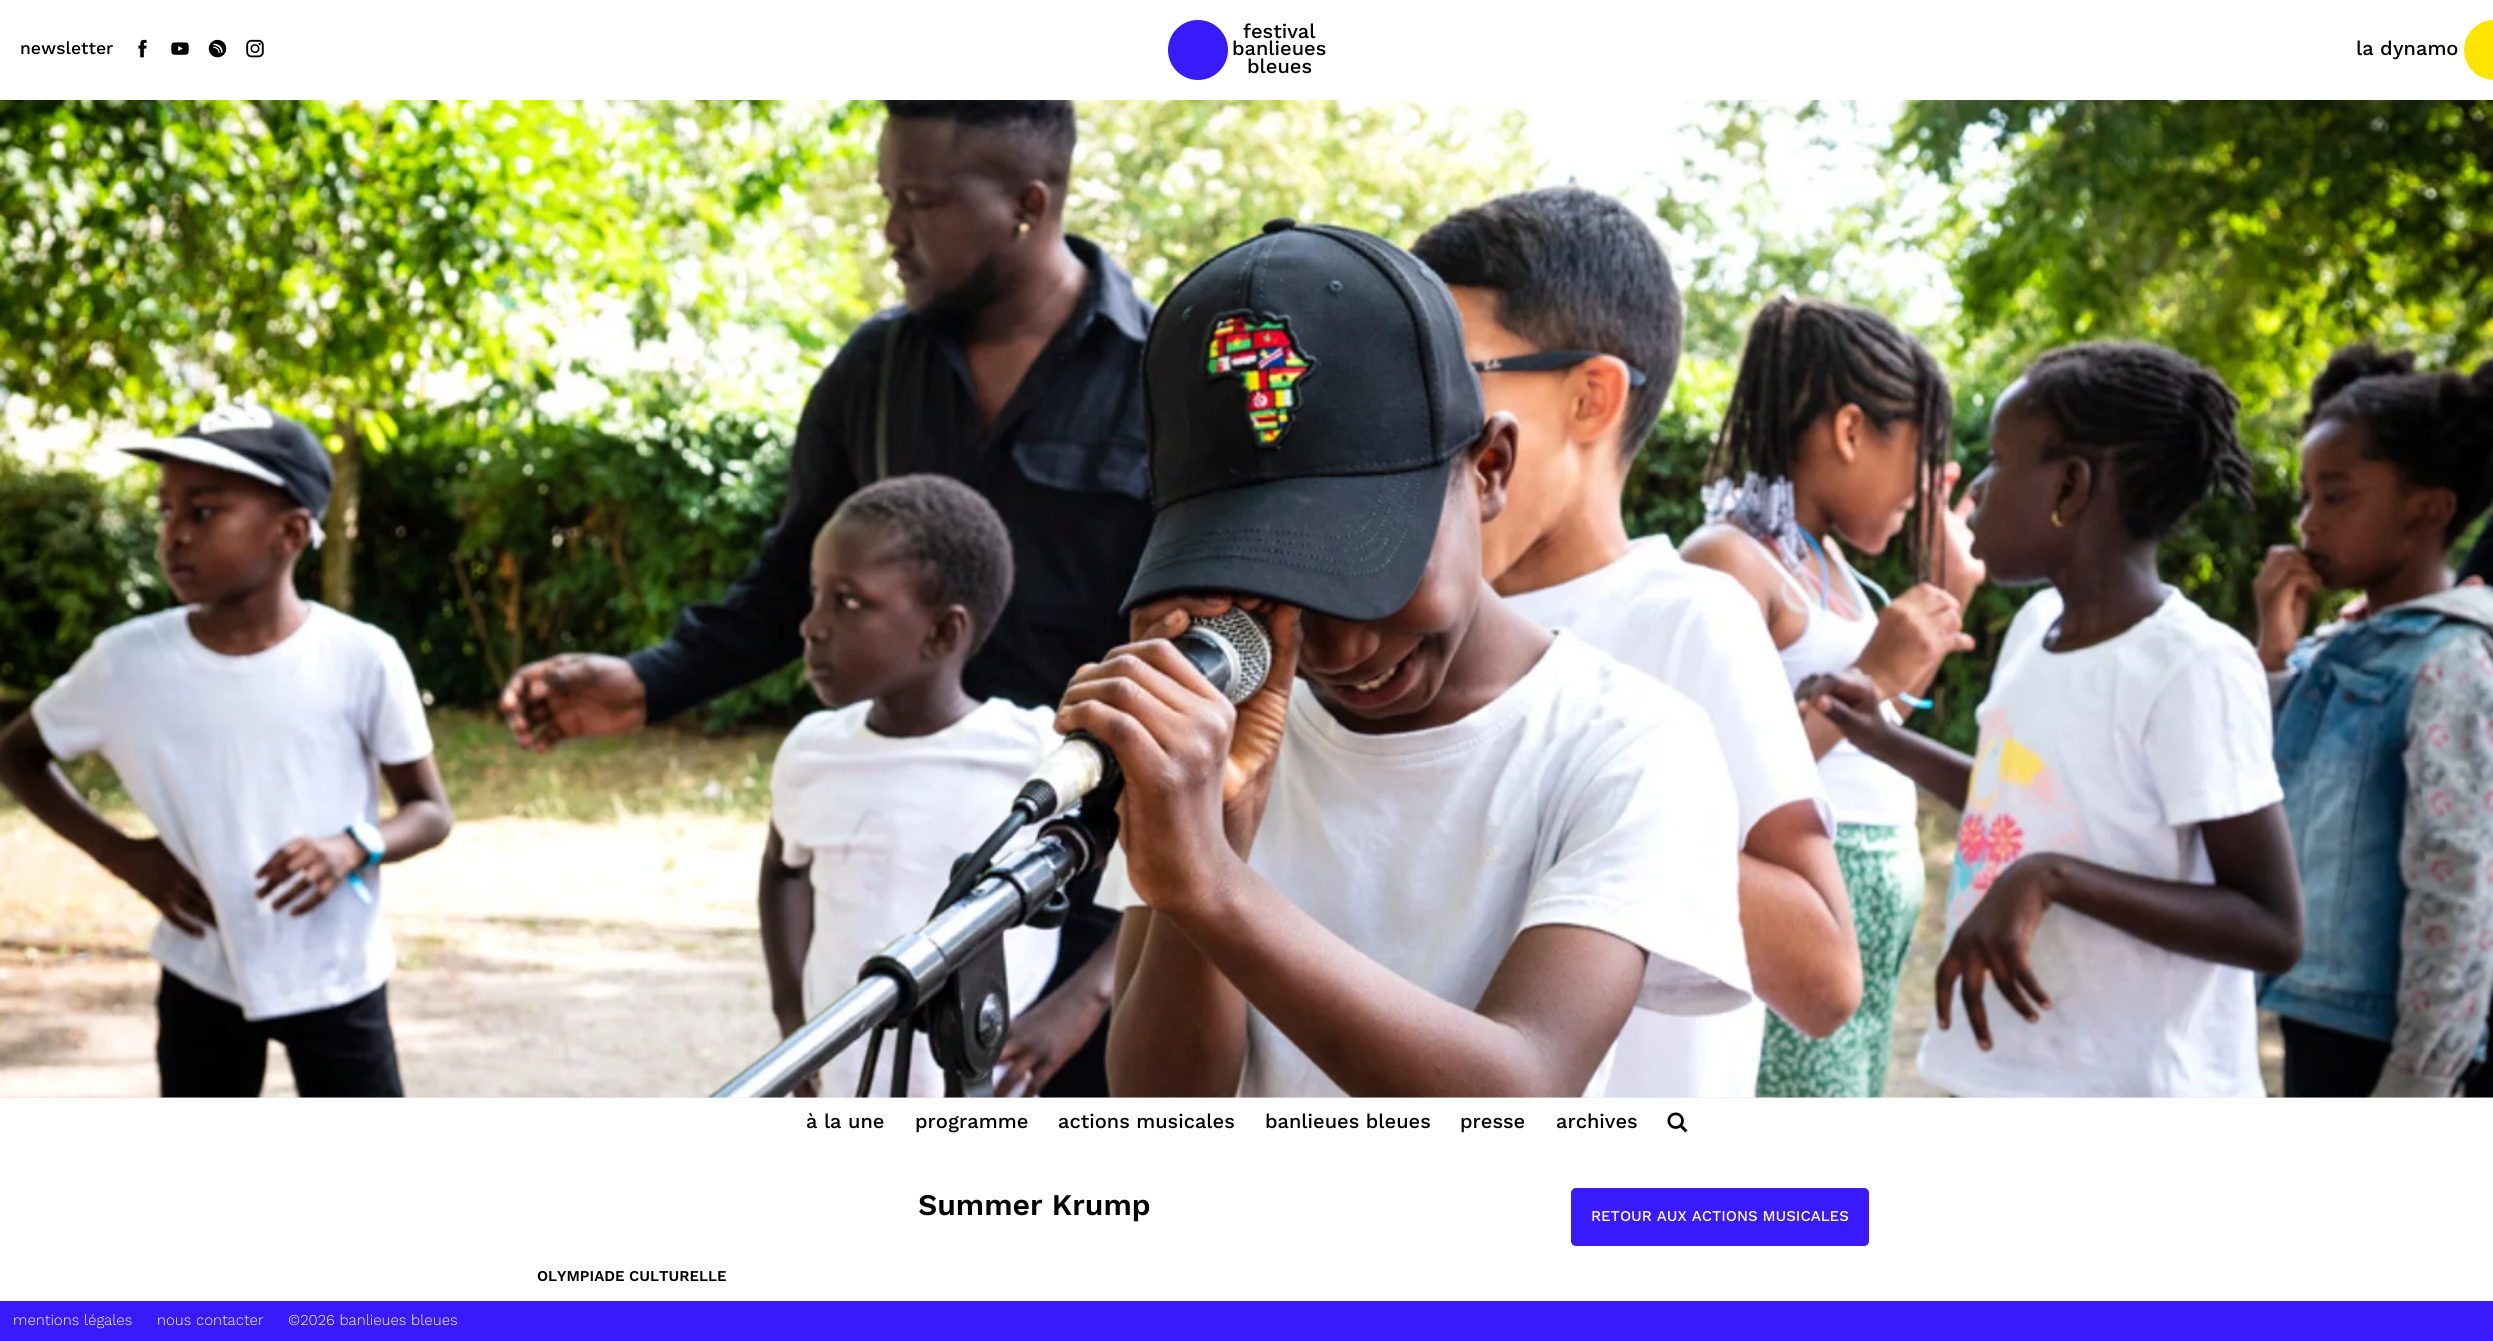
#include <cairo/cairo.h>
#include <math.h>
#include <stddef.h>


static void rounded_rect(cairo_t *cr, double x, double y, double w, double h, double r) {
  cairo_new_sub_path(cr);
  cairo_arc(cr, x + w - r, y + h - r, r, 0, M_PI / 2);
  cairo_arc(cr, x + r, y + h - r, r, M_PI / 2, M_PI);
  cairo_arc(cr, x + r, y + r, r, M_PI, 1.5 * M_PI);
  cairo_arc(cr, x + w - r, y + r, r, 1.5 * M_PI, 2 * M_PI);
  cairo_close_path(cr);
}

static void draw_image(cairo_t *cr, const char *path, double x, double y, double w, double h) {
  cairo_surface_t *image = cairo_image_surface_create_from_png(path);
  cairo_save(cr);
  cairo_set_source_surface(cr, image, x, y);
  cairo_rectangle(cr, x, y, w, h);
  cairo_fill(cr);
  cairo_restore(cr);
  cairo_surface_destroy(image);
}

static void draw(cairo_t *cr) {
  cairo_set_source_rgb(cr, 1, 1, 1);
  cairo_paint(cr);
  draw_image(cr, "images/1.png", 138, 39, 9, 19);
  draw_image(cr, "images/2.png", 171, 42, 18, 13);
  draw_image(cr, "images/3.png", 208, 39, 19, 19);
  draw_image(cr, "images/4.png", 246, 39, 18, 19);
  cairo_set_source_rgb(cr, 57 / 255.0, 26 / 255.0, 250 / 255.0);
  cairo_arc(cr, 1198, 50, 30, 0, 2 * M_PI);
  cairo_fill(cr);
  cairo_set_source_rgb(cr, 1, 228 / 255.0, 0);
  cairo_new_path(cr);
  cairo_move_to(cr, 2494, 20);
  cairo_line_to(cr, 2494, 80);
  cairo_curve_to(cr, 2477.5, 80, 2464, 66.5, 2464, 50);
  cairo_curve_to(cr, 2464, 33.5, 2477.5, 20, 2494, 20);
  cairo_close_path(cr);
  cairo_fill(cr);
  draw_image(cr, "images/5.png", 1667, 1112, 21, 21);
  cairo_set_source_rgb(cr, 235 / 255.0, 235 / 255.0, 235 / 255.0);
  cairo_rectangle(cr, 0, 1097, 2493, 1);
  cairo_fill(cr);
  draw_image(cr, "images/6.png", 0, 100, 2493, 998);
  cairo_set_source_rgb(cr, 57 / 255.0, 26 / 255.0, 250 / 255.0);
  rounded_rect(cr, 1571, 1188, 298, 58, 5);
  cairo_fill(cr);
  cairo_rectangle(cr, 0, 1301, 2493, 40);
  cairo_fill(cr);
  cairo_select_font_face(cr, "Work Sans Medium", CAIRO_FONT_SLANT_NORMAL, CAIRO_FONT_WEIGHT_NORMAL);
  cairo_set_font_size(cr, 17.5);
  cairo_set_source_rgb(cr, 0, 0, 0);
  cairo_move_to(cr, 20, 54);
  cairo_show_text(cr, "newsletter");
  cairo_set_font_size(cr, 20);
  cairo_move_to(cr, 1243, 38);
  cairo_show_text(cr, "festival");
  cairo_move_to(cr, 1232, 55);
  cairo_show_text(cr, "banlieues");
  cairo_move_to(cr, 1247, 73);
  cairo_show_text(cr, "bleues");
  cairo_move_to(cr, 2356, 55);
  cairo_show_text(cr, "la dynamo");
  cairo_move_to(cr, 806, 1128);
  cairo_show_text(cr, "à la une");
  cairo_move_to(cr, 915, 1128);
  cairo_show_text(cr, "programme");
  cairo_move_to(cr, 1058, 1128);
  cairo_show_text(cr, "actions musicales");
  cairo_move_to(cr, 1265, 1128);
  cairo_show_text(cr, "banlieues bleues");
  cairo_move_to(cr, 1460, 1128);
  cairo_show_text(cr, "presse");
  cairo_move_to(cr, 1556, 1128);
  cairo_show_text(cr, "archives");
  cairo_select_font_face(cr, "Work Sans SemiBold", CAIRO_FONT_SLANT_NORMAL, CAIRO_FONT_WEIGHT_NORMAL);
  cairo_set_font_size(cr, 30);
  cairo_move_to(cr, 918, 1215);
  cairo_show_text(cr, "Summer Krump");
  cairo_set_font_size(cr, 15);
  cairo_move_to(cr, 537, 1281);
  cairo_show_text(cr, "OLYMPIADE CULTURELLE");
  cairo_select_font_face(cr, "Work Sans Medium", CAIRO_FONT_SLANT_NORMAL, CAIRO_FONT_WEIGHT_NORMAL);
  cairo_set_source_rgb(cr, 1, 1, 1);
  cairo_move_to(cr, 1591, 1221);
  cairo_show_text(cr, "RETOUR AUX ACTIONS MUSICALES");
  cairo_select_font_face(cr, "Work Sans Light", CAIRO_FONT_SLANT_NORMAL, CAIRO_FONT_WEIGHT_NORMAL);
  cairo_move_to(cr, 13, 1325);
  cairo_show_text(cr, "mentions légales");
  cairo_move_to(cr, 157, 1325);
  cairo_show_text(cr, "nous contacter");
  cairo_move_to(cr, 288, 1325);
  cairo_show_text(cr, "©2026 banlieues bleues");
}

int main(void) {
  cairo_surface_t *surface = cairo_image_surface_create(CAIRO_FORMAT_RGB24, 2493, 1341);
  cairo_t *cr = cairo_create(surface);
  cairo_font_options_t *options = cairo_font_options_create();
  cairo_font_options_set_hint_metrics(options, CAIRO_HINT_METRICS_OFF);
  cairo_font_options_set_hint_style(options, CAIRO_HINT_STYLE_NONE);
  cairo_set_font_options(cr, options);
  cairo_set_miter_limit(cr, 4);
  draw(cr);
  cairo_surface_write_to_png(surface, "out.png");
  cairo_font_options_destroy(options);
  cairo_destroy(cr);
  cairo_surface_destroy(surface);
  return 0;
}
